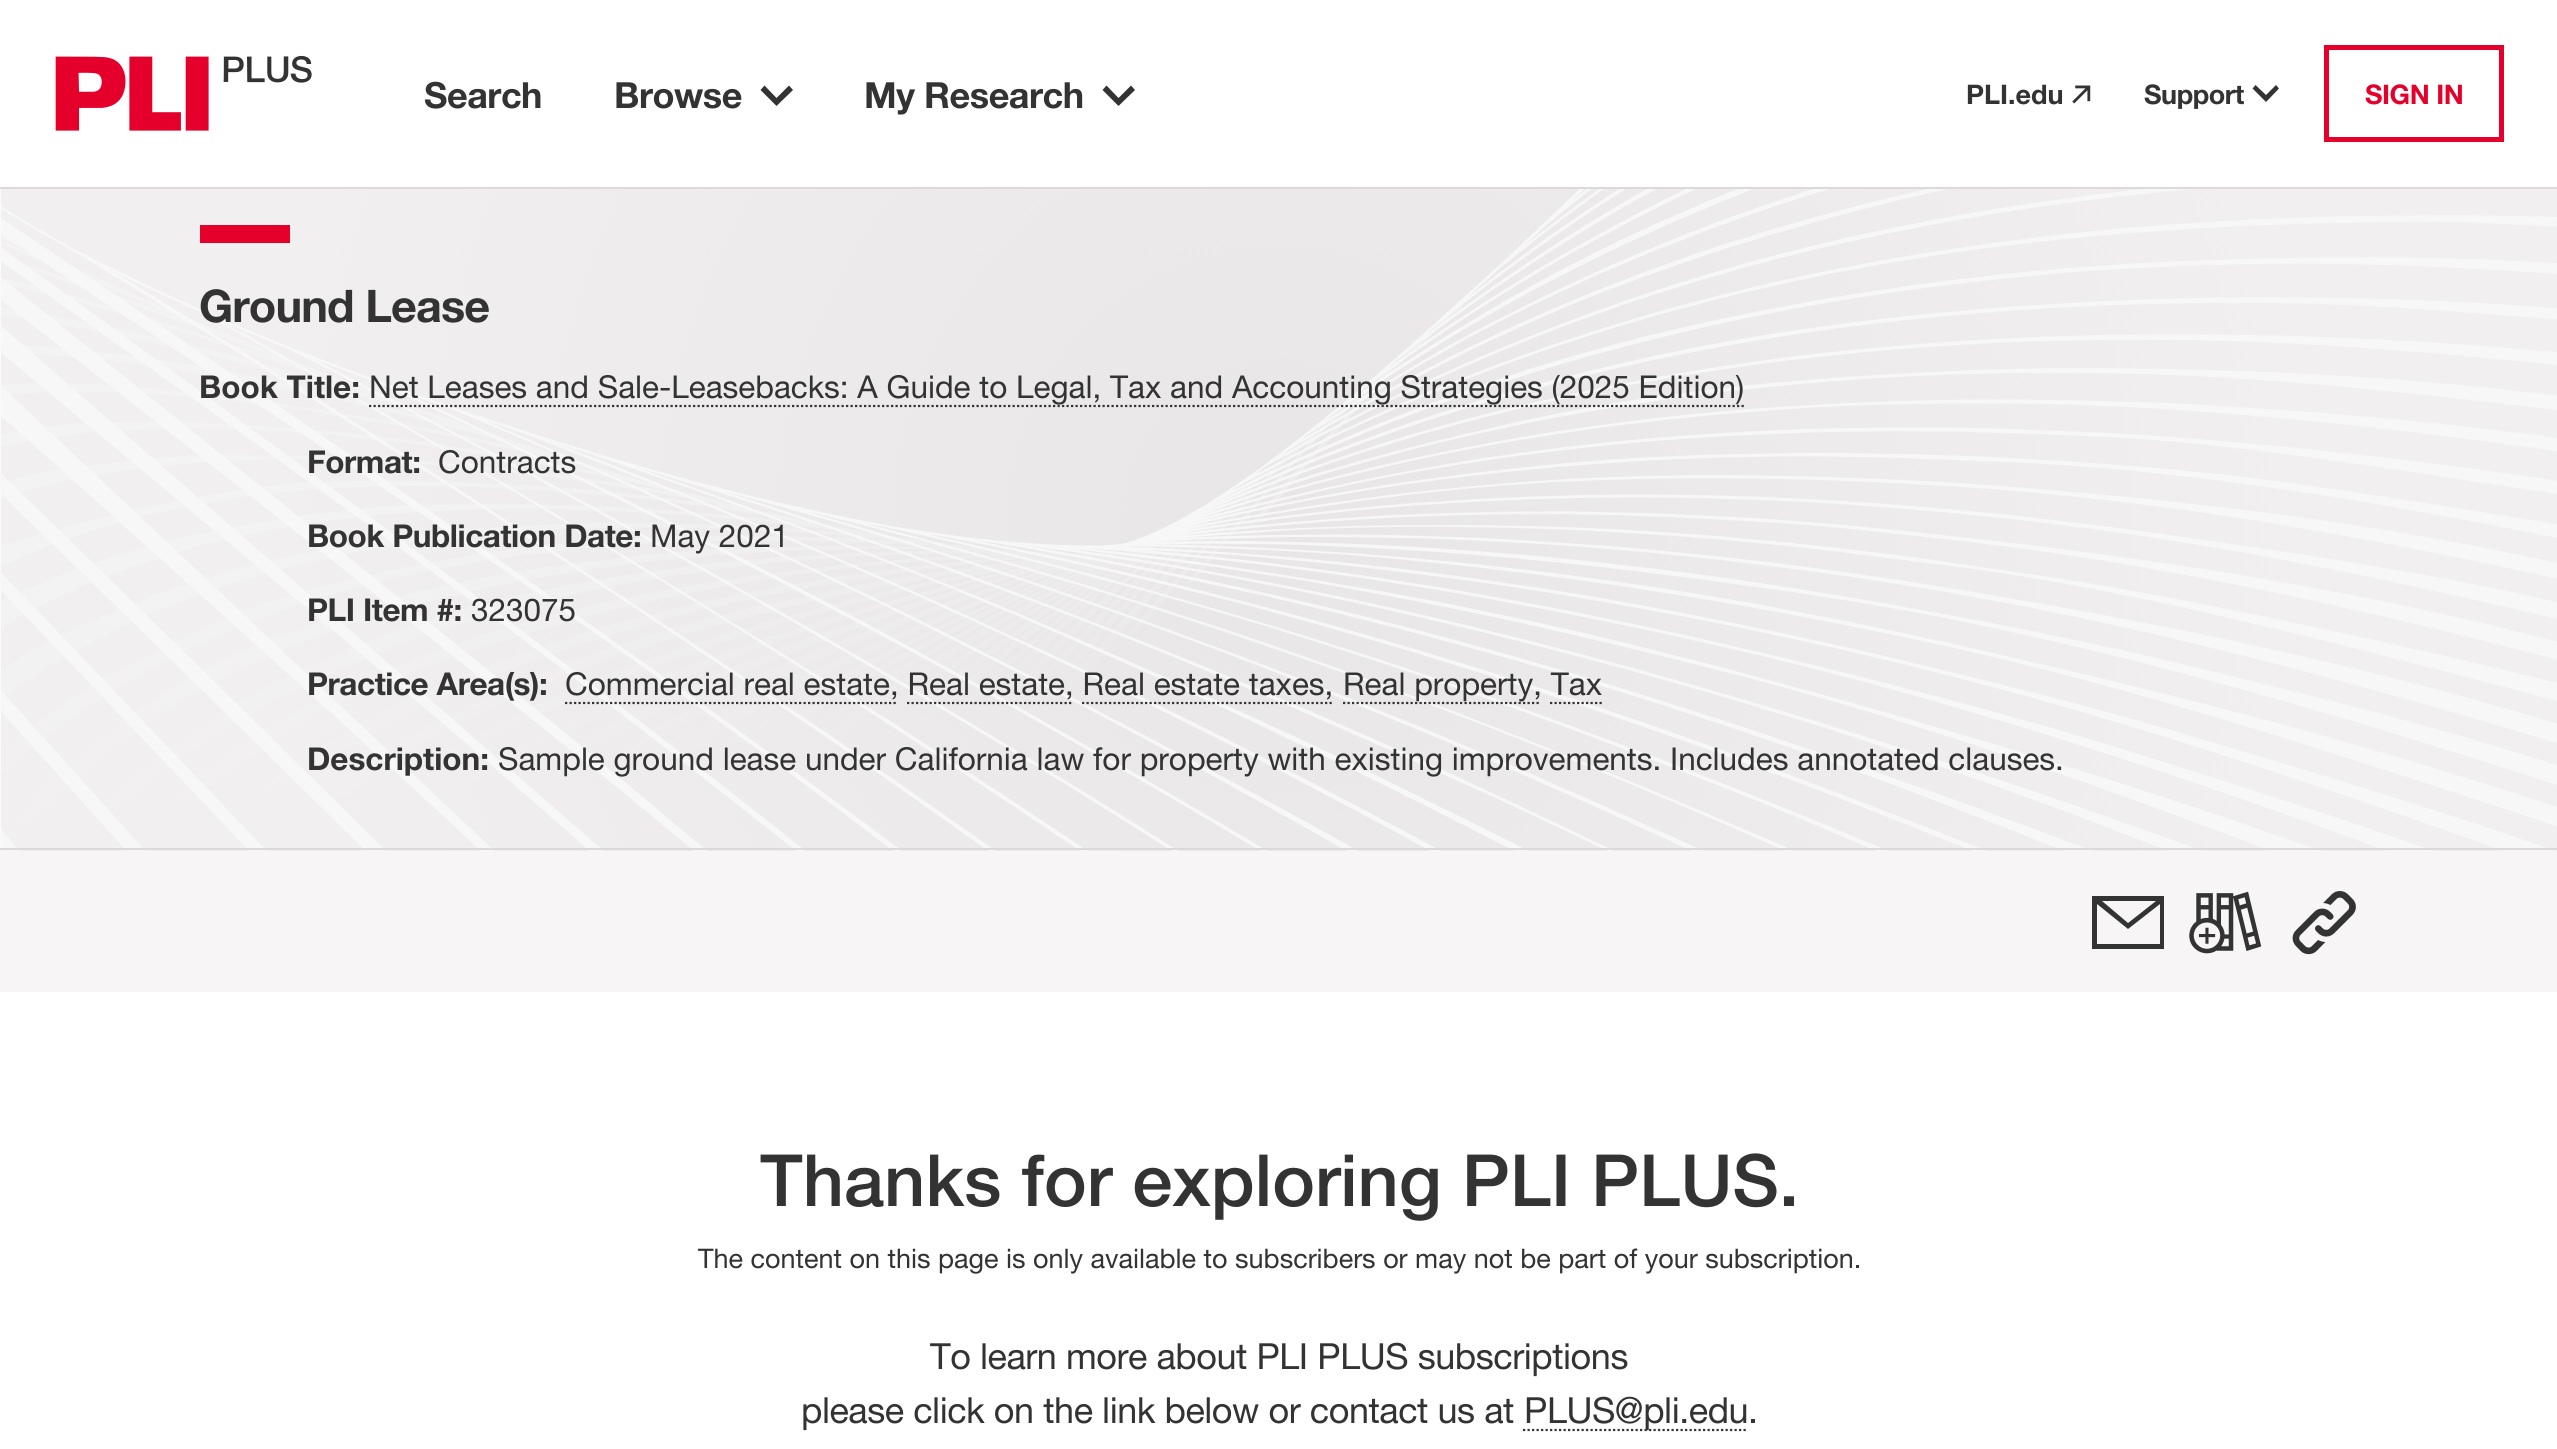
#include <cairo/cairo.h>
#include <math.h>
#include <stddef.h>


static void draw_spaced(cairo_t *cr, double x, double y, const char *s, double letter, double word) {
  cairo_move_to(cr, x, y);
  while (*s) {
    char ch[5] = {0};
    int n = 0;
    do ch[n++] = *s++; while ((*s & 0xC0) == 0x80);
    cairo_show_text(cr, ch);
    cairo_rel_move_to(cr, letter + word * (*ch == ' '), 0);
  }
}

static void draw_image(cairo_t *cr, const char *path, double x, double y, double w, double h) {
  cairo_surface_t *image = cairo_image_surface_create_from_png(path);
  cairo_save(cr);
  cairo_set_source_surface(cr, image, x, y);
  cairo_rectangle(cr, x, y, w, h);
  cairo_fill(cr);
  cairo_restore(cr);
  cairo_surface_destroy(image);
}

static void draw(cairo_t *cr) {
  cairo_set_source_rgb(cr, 1, 1, 1);
  cairo_paint(cr);
  cairo_set_source_rgb(cr, 222 / 255.0, 217 / 255.0, 217 / 255.0);
  cairo_rectangle(cr, 0, 187, 2557, 2);
  cairo_fill(cr);
  draw_image(cr, "images/1.png", 55, 55, 257, 76);
  cairo_set_source_rgb(cr, 51 / 255.0, 51 / 255.0, 51 / 255.0);
  cairo_new_path(cr);
  cairo_move_to(cr, 793, 90);
  cairo_line_to(cr, 789, 85.5);
  cairo_line_to(cr, 793, 90);
  cairo_line_to(cr, 789, 85.5);
  cairo_line_to(cr, 776.5, 98);
  cairo_line_to(cr, 764.5, 85.5);
  cairo_line_to(cr, 760.5, 90);
  cairo_line_to(cr, 776.5, 106);
  cairo_close_path(cr);
  cairo_fill(cr);
  cairo_new_path(cr);
  cairo_move_to(cr, 1135, 90);
  cairo_line_to(cr, 1131, 85.5);
  cairo_line_to(cr, 1135, 90);
  cairo_line_to(cr, 1131, 85.5);
  cairo_line_to(cr, 1118.5, 98);
  cairo_line_to(cr, 1106.5, 85.5);
  cairo_line_to(cr, 1102.5, 90);
  cairo_line_to(cr, 1118.5, 106);
  cairo_close_path(cr);
  cairo_fill(cr);
  draw_image(cr, "images/2.png", 2072, 85, 19, 19);
  cairo_new_path(cr);
  cairo_move_to(cr, 2279, 88.5);
  cairo_line_to(cr, 2276, 85);
  cairo_line_to(cr, 2279, 88.5);
  cairo_line_to(cr, 2276, 85);
  cairo_line_to(cr, 2266, 95);
  cairo_line_to(cr, 2255.5, 85);
  cairo_line_to(cr, 2252.5, 88.5);
  cairo_line_to(cr, 2266, 102);
  cairo_close_path(cr);
  cairo_fill(cr);
  cairo_rectangle(cr, 2326.5, 47.5, 175, 92);
  cairo_set_source_rgb(cr, 228 / 255.0, 0, 43 / 255.0);
  cairo_set_line_width(cr, 5);
  cairo_stroke(cr);
  draw_image(cr, "images/3.png", 0, 189, 2557, 662);
  cairo_set_source_rgb(cr, 222 / 255.0, 217 / 255.0, 217 / 255.0);
  cairo_rectangle(cr, 0, 848, 2557, 2);
  cairo_fill(cr);
  cairo_set_source_rgb(cr, 228 / 255.0, 0, 43 / 255.0);
  cairo_rectangle(cr, 200, 225, 90, 18);
  cairo_fill(cr);
  cairo_new_path(cr);
  cairo_move_to(cr, 369, 406);
  cairo_line_to(cr, 1744, 406);
  cairo_set_source_rgb(cr, 51 / 255.0, 51 / 255.0, 51 / 255.0);
  cairo_set_line_width(cr, 2.2);
  cairo_set_dash(cr, (double[]){2.25, 2.25}, 2, 0);
  cairo_stroke(cr);
  cairo_new_path(cr);
  cairo_move_to(cr, 565, 703);
  cairo_line_to(cr, 898, 703);
  cairo_stroke(cr);
  cairo_new_path(cr);
  cairo_move_to(cr, 1343, 703);
  cairo_line_to(cr, 1541, 703);
  cairo_stroke(cr);
  cairo_new_path(cr);
  cairo_move_to(cr, 907, 703);
  cairo_line_to(cr, 1073, 703);
  cairo_stroke(cr);
  cairo_new_path(cr);
  cairo_move_to(cr, 1082, 703);
  cairo_line_to(cr, 1334, 703);
  cairo_stroke(cr);
  cairo_new_path(cr);
  cairo_move_to(cr, 1550, 703);
  cairo_line_to(cr, 1602, 703);
  cairo_stroke(cr);
  cairo_set_source_rgb(cr, 247 / 255.0, 245 / 255.0, 245 / 255.0);
  cairo_rectangle(cr, 0, 851, 2557, 141);
  cairo_fill(cr);
  cairo_set_source_rgb(cr, 51 / 255.0, 51 / 255.0, 51 / 255.0);
  cairo_new_path(cr);
  cairo_move_to(cr, 2092, 896);
  cairo_line_to(cr, 2092, 949);
  cairo_line_to(cr, 2092, 896);
  cairo_line_to(cr, 2092, 949);
  cairo_line_to(cr, 2164, 949);
  cairo_line_to(cr, 2164, 896);
  cairo_close_path(cr);
  cairo_move_to(cr, 2156, 901);
  cairo_line_to(cr, 2128, 923);
  cairo_line_to(cr, 2156, 901);
  cairo_line_to(cr, 2128, 923);
  cairo_line_to(cr, 2102, 901);
  cairo_close_path(cr);
  cairo_move_to(cr, 2097, 944);
  cairo_line_to(cr, 2097, 904);
  cairo_line_to(cr, 2097, 944);
  cairo_line_to(cr, 2097, 904);
  cairo_line_to(cr, 2128, 929);
  cairo_line_to(cr, 2160, 904);
  cairo_line_to(cr, 2160, 944);
  cairo_close_path(cr);
  cairo_fill(cr);
  draw_image(cr, "images/4.png", 2189, 891, 73, 63);
  draw_image(cr, "images/5.png", 2292, 891, 64, 64);
  cairo_new_path(cr);
  cairo_move_to(cr, 1523, 1430);
  cairo_line_to(cr, 1748, 1430);
  cairo_stroke(cr);
  cairo_select_font_face(cr, "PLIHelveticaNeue", CAIRO_FONT_SLANT_NORMAL, CAIRO_FONT_WEIGHT_BOLD);
  cairo_set_font_size(cr, 36);
  draw_spaced(cr, 424, 108, "Search", -0.45, 0);
  draw_spaced(cr, 614, 108, "Browse", -0.45, 0);
  draw_spaced(cr, 864, 108, "My Research", -0.45, 0);
  cairo_set_font_size(cr, 27);
  cairo_move_to(cr, 1966, 104);
  cairo_show_text(cr, "PLI.edu");
  draw_spaced(cr, 2144, 104, "Support", -0.45, 0);
  cairo_set_source_rgb(cr, 228 / 255.0, 0, 43 / 255.0);
  draw_spaced(cr, 2365, 104, "SIGN IN", -0.45, 0);
  cairo_set_font_size(cr, 45);
  cairo_set_source_rgb(cr, 51 / 255.0, 51 / 255.0, 51 / 255.0);
  draw_spaced(cr, 199, 322, "Ground Lease", -0.9, 0);
  cairo_set_font_size(cr, 31.5);
  cairo_move_to(cr, 199, 398);
  cairo_show_text(cr, "Book Title:");
  cairo_select_font_face(cr, "PLIHelveticaNeue", CAIRO_FONT_SLANT_NORMAL, CAIRO_FONT_WEIGHT_NORMAL);
  cairo_move_to(cr, 369, 398);
  cairo_show_text(cr, "Net Leases and Sale-Leasebacks: A Guide to Legal, Tax and Accounting Strategies (2025 Edition)");
  cairo_select_font_face(cr, "PLIHelveticaNeue", CAIRO_FONT_SLANT_NORMAL, CAIRO_FONT_WEIGHT_BOLD);
  draw_spaced(cr, 307, 473, "Format:", -0.45, 0);
  cairo_select_font_face(cr, "PLIHelveticaNeue", CAIRO_FONT_SLANT_NORMAL, CAIRO_FONT_WEIGHT_NORMAL);
  cairo_move_to(cr, 438, 473);
  cairo_show_text(cr, "Contracts");
  cairo_select_font_face(cr, "PLIHelveticaNeue", CAIRO_FONT_SLANT_NORMAL, CAIRO_FONT_WEIGHT_BOLD);
  draw_spaced(cr, 307, 547, "Book Publication Date:", -0.45, 0);
  cairo_select_font_face(cr, "PLIHelveticaNeue", CAIRO_FONT_SLANT_NORMAL, CAIRO_FONT_WEIGHT_NORMAL);
  cairo_move_to(cr, 650, 547);
  cairo_show_text(cr, "May 2021");
  cairo_select_font_face(cr, "PLIHelveticaNeue", CAIRO_FONT_SLANT_NORMAL, CAIRO_FONT_WEIGHT_BOLD);
  draw_spaced(cr, 307, 621, "PLI Item #:", -0.45, 0);
  cairo_select_font_face(cr, "PLIHelveticaNeue", CAIRO_FONT_SLANT_NORMAL, CAIRO_FONT_WEIGHT_NORMAL);
  cairo_move_to(cr, 471, 621);
  cairo_show_text(cr, "323075");
  cairo_select_font_face(cr, "PLIHelveticaNeue", CAIRO_FONT_SLANT_NORMAL, CAIRO_FONT_WEIGHT_BOLD);
  draw_spaced(cr, 307, 695, "Practice Area(s):", -0.45, 0);
  cairo_select_font_face(cr, "PLIHelveticaNeue", CAIRO_FONT_SLANT_NORMAL, CAIRO_FONT_WEIGHT_NORMAL);
  cairo_move_to(cr, 565, 695);
  cairo_show_text(cr, "Commercial real estate, Real estate, Real estate taxes,");
  cairo_move_to(cr, 1343, 695);
  cairo_show_text(cr, "Real property, Tax");
  cairo_select_font_face(cr, "PLIHelveticaNeue", CAIRO_FONT_SLANT_NORMAL, CAIRO_FONT_WEIGHT_BOLD);
  cairo_move_to(cr, 307, 770);
  cairo_show_text(cr, "Description:");
  cairo_select_font_face(cr, "PLIHelveticaNeue", CAIRO_FONT_SLANT_NORMAL, CAIRO_FONT_WEIGHT_NORMAL);
  cairo_move_to(cr, 498, 770);
  cairo_show_text(cr, "Sample ground lease under California law for property with existing improvements. Includes annotated clauses.");
  cairo_select_font_face(cr, "PLIHelveticaNeue Medium", CAIRO_FONT_SLANT_NORMAL, CAIRO_FONT_WEIGHT_NORMAL);
  cairo_set_font_size(cr, 72);
  cairo_move_to(cr, 760, 1206);
  cairo_show_text(cr, "Thanks for exploring PLI PLUS.");
  cairo_select_font_face(cr, "PLIHelveticaNeue", CAIRO_FONT_SLANT_NORMAL, CAIRO_FONT_WEIGHT_NORMAL);
  cairo_set_font_size(cr, 27);
  cairo_move_to(cr, 698, 1268);
  cairo_show_text(cr, "The content on this page is only available to subscribers or may not be part of your subscription.");
  cairo_set_font_size(cr, 36);
  draw_spaced(cr, 930, 1369, "To learn more about PLI PLUS subscriptions", -0.45, 0);
  draw_spaced(cr, 801, 1423, "please click on the link below or contact us at", -0.45, 0);
  draw_spaced(cr, 1524, 1423, "PLUS@pli.edu.", -0.45, 0);
}

int main(void) {
  cairo_surface_t *surface = cairo_image_surface_create(CAIRO_FORMAT_RGB24, 2557, 1449);
  cairo_t *cr = cairo_create(surface);
  cairo_font_options_t *options = cairo_font_options_create();
  cairo_font_options_set_hint_metrics(options, CAIRO_HINT_METRICS_OFF);
  cairo_font_options_set_hint_style(options, CAIRO_HINT_STYLE_NONE);
  cairo_set_font_options(cr, options);
  cairo_set_miter_limit(cr, 4);
  draw(cr);
  cairo_surface_write_to_png(surface, "out.png");
  cairo_font_options_destroy(options);
  cairo_destroy(cr);
  cairo_surface_destroy(surface);
  return 0;
}
